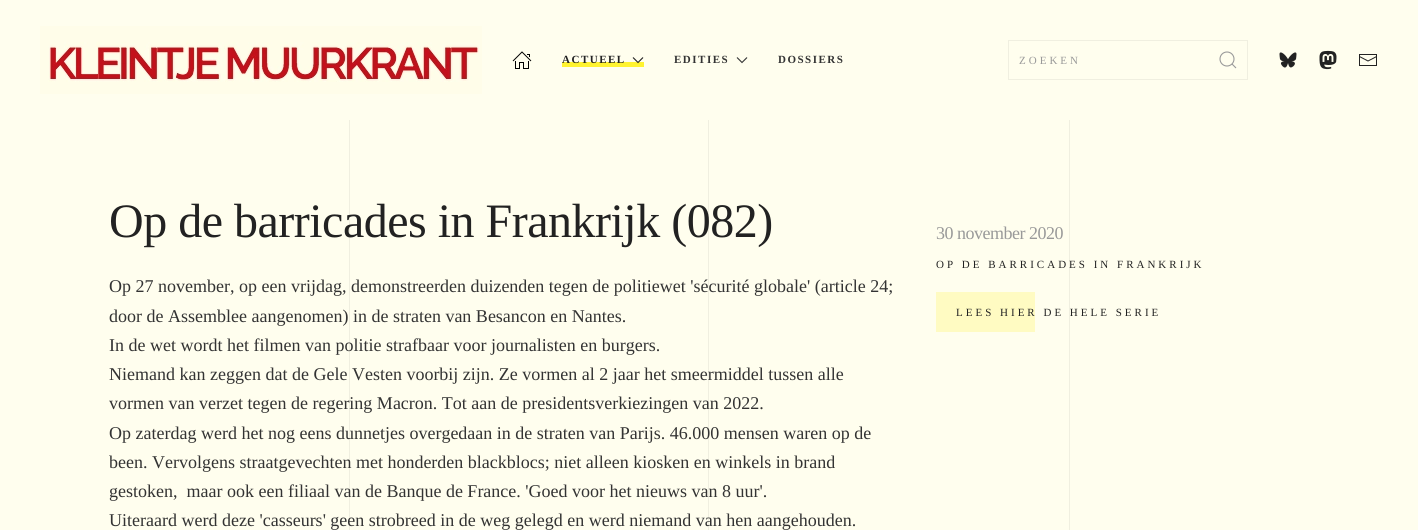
#include <cairo/cairo.h>
#include <math.h>
#include <stddef.h>


static void draw_spaced(cairo_t *cr, double x, double y, const char *s, double letter, double word) {
  cairo_move_to(cr, x, y);
  while (*s) {
    char ch[5] = {0};
    int n = 0;
    do ch[n++] = *s++; while ((*s & 0xC0) == 0x80);
    cairo_show_text(cr, ch);
    cairo_rel_move_to(cr, letter + word * (*ch == ' '), 0);
  }
}

static void draw_image(cairo_t *cr, const char *path, double x, double y, double w, double h) {
  cairo_surface_t *image = cairo_image_surface_create_from_png(path);
  cairo_save(cr);
  cairo_set_source_surface(cr, image, x, y);
  cairo_rectangle(cr, x, y, w, h);
  cairo_fill(cr);
  cairo_restore(cr);
  cairo_surface_destroy(image);
}

static void draw(cairo_t *cr) {
  cairo_set_source_rgb(cr, 1, 254 / 255.0, 238 / 255.0);
  cairo_paint(cr);
  draw_image(cr, "images/1.png", 40, 26, 442, 68);
  draw_image(cr, "images/2.png", 512, 51, 20, 18);
  cairo_set_source_rgb(cr, 1, 243 / 255.0, 48 / 255.0);
  cairo_rectangle(cr, 562, 62, 82, 5);
  cairo_fill(cr);
  cairo_new_path(cr);
  cairo_move_to(cr, 633, 57.5);
  cairo_line_to(cr, 638, 62.5);
  cairo_line_to(cr, 643, 57.5);
  cairo_set_source_rgb(cr, 34 / 255.0, 34 / 255.0, 34 / 255.0);
  cairo_set_line_width(cr, 1.1);
  cairo_stroke(cr);
  cairo_new_path(cr);
  cairo_move_to(cr, 737, 57.5);
  cairo_line_to(cr, 742, 62.5);
  cairo_line_to(cr, 747, 57.5);
  cairo_set_source_rgb(cr, 51 / 255.0, 51 / 255.0, 51 / 255.0);
  cairo_stroke(cr);
  cairo_rectangle(cr, 1008.5, 40.5, 239, 39);
  cairo_set_source_rgb(cr, 240 / 255.0, 239 / 255.0, 224 / 255.0);
  cairo_set_line_width(cr, 1);
  cairo_stroke(cr);
  cairo_arc(cr, 1227, 59, 7, 0, 2 * M_PI);
  cairo_set_source_rgb(cr, 153 / 255.0, 153 / 255.0, 153 / 255.0);
  cairo_set_line_width(cr, 1.1);
  cairo_stroke(cr);
  cairo_new_path(cr);
  cairo_move_to(cr, 1232, 64);
  cairo_line_to(cr, 1236, 68);
  cairo_close_path(cr);
  cairo_stroke(cr);
  draw_image(cr, "images/3.png", 1279, 52, 18, 16);
  draw_image(cr, "images/4.png", 1319, 50, 18, 20);
  draw_image(cr, "images/5.png", 1359, 54, 18, 12);
  draw_image(cr, "images/6.png", 349, 120, 721, 410);
  cairo_set_source_rgb(cr, 1, 251 / 255.0, 194 / 255.0);
  cairo_rectangle(cr, 936, 292, 99, 40);
  cairo_fill(cr);
  cairo_select_font_face(cr, "Liberation Serif", CAIRO_FONT_SLANT_NORMAL, CAIRO_FONT_WEIGHT_BOLD);
  cairo_set_font_size(cr, 11);
  cairo_set_source_rgb(cr, 34 / 255.0, 34 / 255.0, 34 / 255.0);
  draw_spaced(cr, 562, 63, "ACTUEEL", 1.5, 0);
  cairo_set_source_rgb(cr, 51 / 255.0, 51 / 255.0, 51 / 255.0);
  draw_spaced(cr, 674, 63, "EDITIES", 1.5, 0);
  draw_spaced(cr, 778, 63, "DOSSIERS", 1.5, 0);
  cairo_select_font_face(cr, "Liberation Serif", CAIRO_FONT_SLANT_NORMAL, CAIRO_FONT_WEIGHT_NORMAL);
  cairo_set_source_rgb(cr, 153 / 255.0, 153 / 255.0, 153 / 255.0);
  draw_spaced(cr, 1019, 64, "ZOEKEN", 3, 0);
  cairo_set_font_size(cr, 48);
  cairo_set_source_rgb(cr, 34 / 255.0, 34 / 255.0, 34 / 255.0);
  draw_spaced(cr, 109, 237, "Op de barricades in Frankrijk (082)", -0.5, 0);
  cairo_set_font_size(cr, 18);
  cairo_set_source_rgb(cr, 51 / 255.0, 51 / 255.0, 51 / 255.0);
  cairo_move_to(cr, 109, 292);
  cairo_show_text(cr, "Op 27 november, op een vrijdag, demonstreerden duizenden tegen de politiewet 'sécurité globale' (article 24;");
  cairo_move_to(cr, 109, 322);
  cairo_show_text(cr, "door de Assemblee aangenomen) in de straten van Besancon en Nantes.");
  cairo_move_to(cr, 109, 351);
  cairo_show_text(cr, "In de wet wordt het filmen van politie strafbaar voor journalisten en burgers.");
  cairo_move_to(cr, 109, 380);
  cairo_show_text(cr, "Niemand kan zeggen dat de Gele Vesten voorbij zijn. Ze vormen al 2 jaar het smeermiddel tussen alle");
  cairo_move_to(cr, 109, 409);
  cairo_show_text(cr, "vormen van verzet tegen de regering Macron. Tot aan de presidentsverkiezingen van 2022.");
  cairo_move_to(cr, 109, 439);
  cairo_show_text(cr, "Op zaterdag werd het nog eens dunnetjes overgedaan in de straten van Parijs. 46.000 mensen waren op de");
  cairo_move_to(cr, 109, 468);
  cairo_show_text(cr, "been. Vervolgens straatgevechten met honderden blackblocs; niet alleen kiosken en winkels in brand");
  cairo_move_to(cr, 109, 497);
  cairo_show_text(cr, "gestoken,  maar ook een filiaal van de Banque de France. 'Goed voor het nieuws van 8 uur'.");
  cairo_move_to(cr, 109, 526);
  cairo_show_text(cr, "Uiteraard werd deze 'casseurs' geen strobreed in de weg gelegd en werd niemand van hen aangehouden.");
  cairo_set_source_rgb(cr, 153 / 255.0, 153 / 255.0, 153 / 255.0);
  draw_spaced(cr, 936, 239, "30 november 2020", -0.5, 0);
  cairo_set_font_size(cr, 11);
  cairo_set_source_rgb(cr, 34 / 255.0, 34 / 255.0, 34 / 255.0);
  draw_spaced(cr, 936, 268, "OP DE BARRICADES IN FRANKRIJK", 3, 0);
  draw_spaced(cr, 956, 316, "LEES HIER DE HELE SERIE", 3, 0);
}

int main(void) {
  cairo_surface_t *surface = cairo_image_surface_create(CAIRO_FORMAT_RGB24, 1418, 530);
  cairo_t *cr = cairo_create(surface);
  cairo_font_options_t *options = cairo_font_options_create();
  cairo_font_options_set_hint_metrics(options, CAIRO_HINT_METRICS_OFF);
  cairo_font_options_set_hint_style(options, CAIRO_HINT_STYLE_NONE);
  cairo_set_font_options(cr, options);
  cairo_set_miter_limit(cr, 4);
  draw(cr);
  cairo_surface_write_to_png(surface, "out.png");
  cairo_font_options_destroy(options);
  cairo_destroy(cr);
  cairo_surface_destroy(surface);
  return 0;
}
